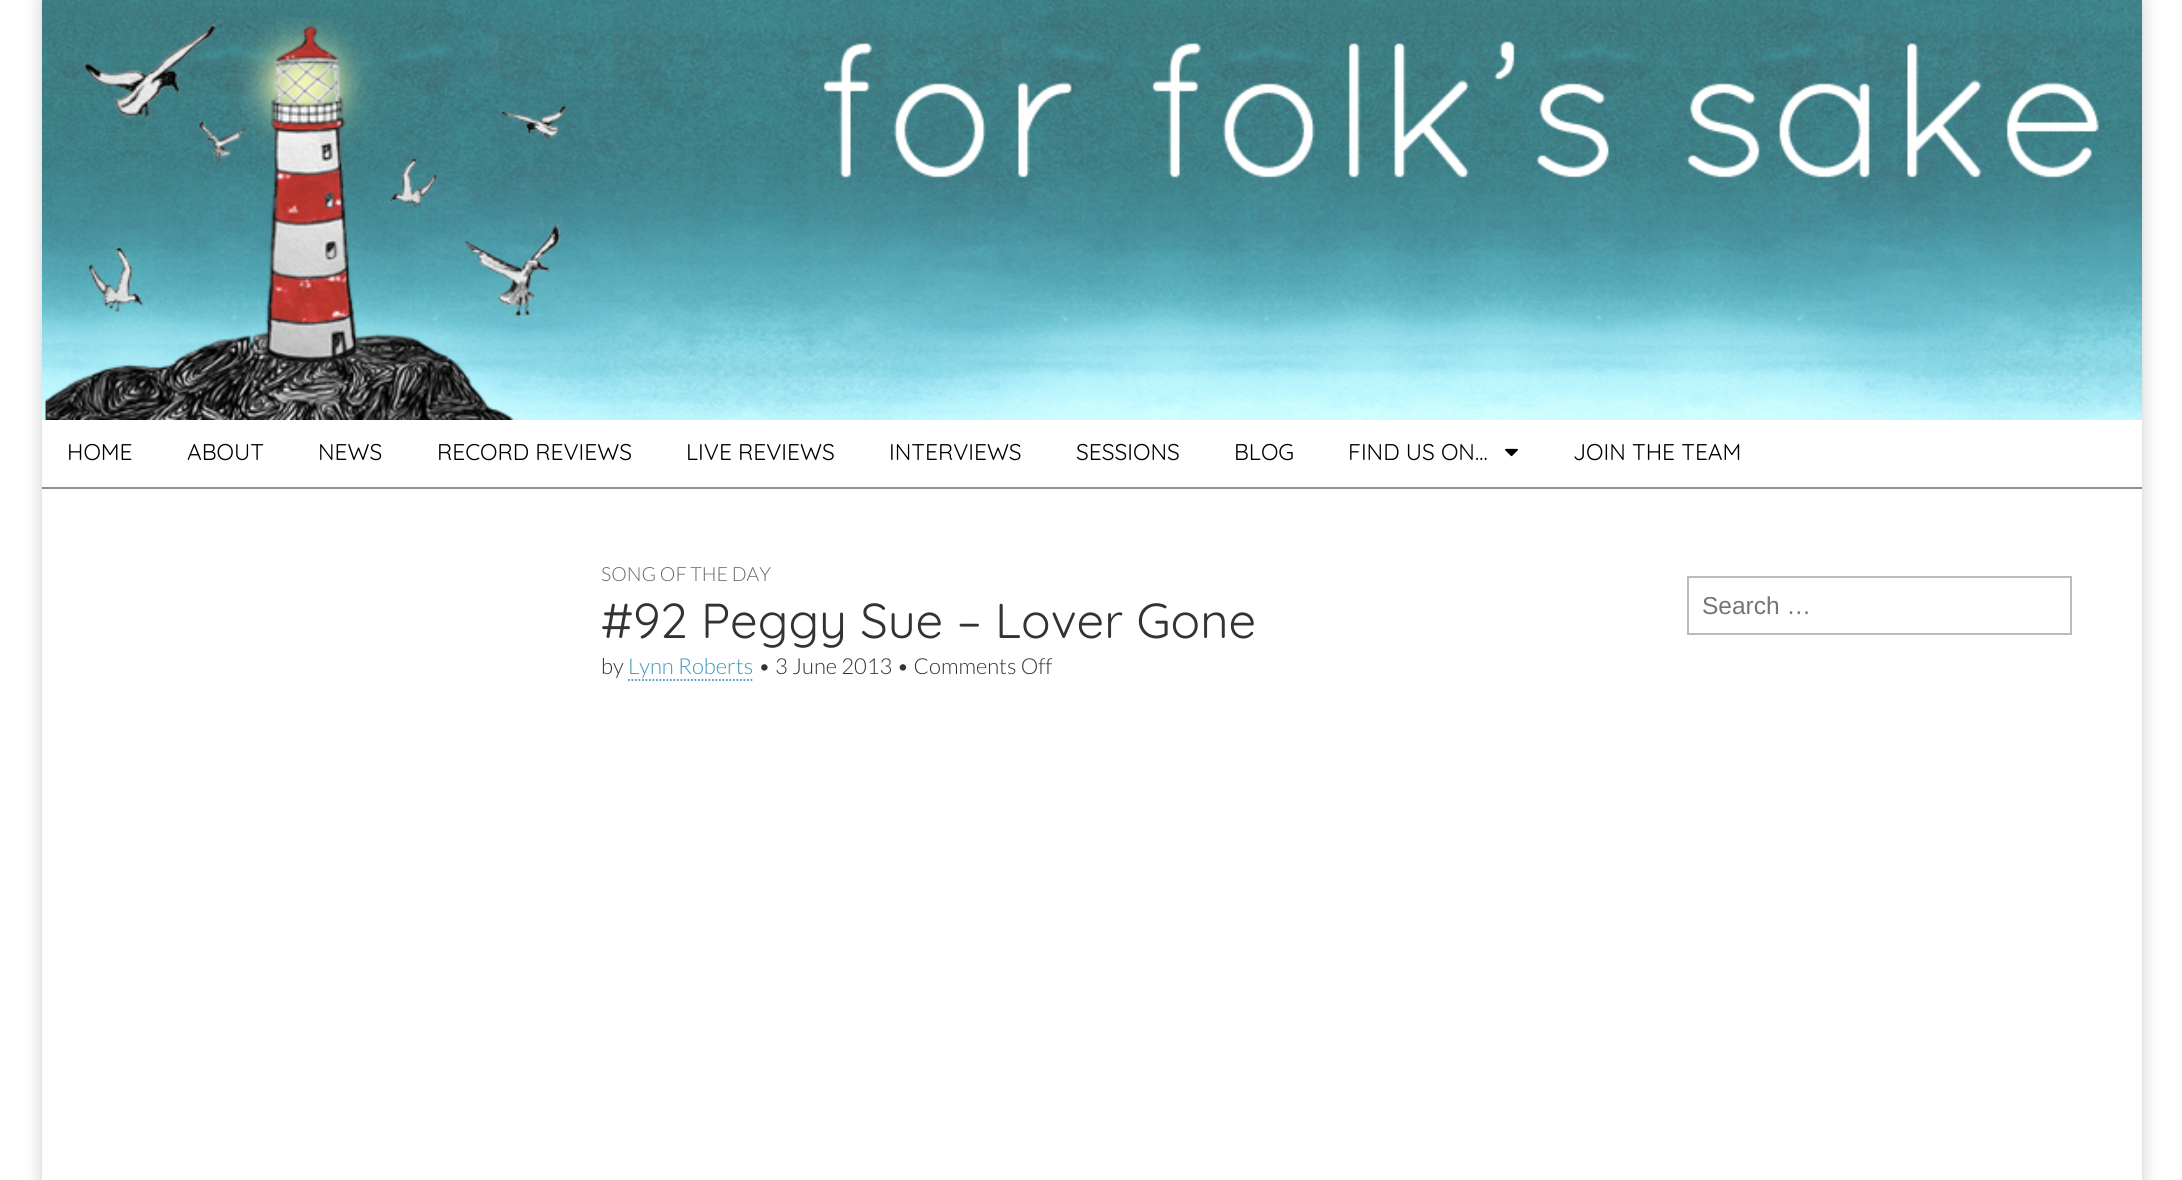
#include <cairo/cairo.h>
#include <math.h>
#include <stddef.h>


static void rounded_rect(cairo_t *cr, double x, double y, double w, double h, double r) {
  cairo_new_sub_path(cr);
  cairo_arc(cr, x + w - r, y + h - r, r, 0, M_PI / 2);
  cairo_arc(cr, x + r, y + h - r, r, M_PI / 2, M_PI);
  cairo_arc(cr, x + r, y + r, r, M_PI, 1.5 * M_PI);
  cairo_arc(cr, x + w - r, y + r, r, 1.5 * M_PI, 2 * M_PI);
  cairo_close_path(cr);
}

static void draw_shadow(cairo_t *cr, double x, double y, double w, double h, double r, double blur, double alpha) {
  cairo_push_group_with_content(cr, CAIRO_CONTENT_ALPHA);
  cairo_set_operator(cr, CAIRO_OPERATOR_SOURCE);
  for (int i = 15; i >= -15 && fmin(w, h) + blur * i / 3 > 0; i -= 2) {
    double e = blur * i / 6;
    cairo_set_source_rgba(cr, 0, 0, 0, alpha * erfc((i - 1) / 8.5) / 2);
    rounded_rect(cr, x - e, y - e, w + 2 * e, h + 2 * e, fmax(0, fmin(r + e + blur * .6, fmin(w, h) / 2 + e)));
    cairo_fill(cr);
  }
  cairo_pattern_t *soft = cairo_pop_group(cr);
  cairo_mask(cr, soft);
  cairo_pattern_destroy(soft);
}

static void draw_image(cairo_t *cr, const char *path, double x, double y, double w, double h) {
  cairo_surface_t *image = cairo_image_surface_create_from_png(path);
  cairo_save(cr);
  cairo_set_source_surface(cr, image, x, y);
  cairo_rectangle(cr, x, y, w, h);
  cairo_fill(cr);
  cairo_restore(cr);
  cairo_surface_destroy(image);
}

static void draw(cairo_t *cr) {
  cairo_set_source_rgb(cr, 1, 1, 1);
  cairo_paint(cr);
  cairo_save(cr);
  cairo_set_fill_rule(cr, CAIRO_FILL_RULE_EVEN_ODD);
  cairo_new_path(cr);
  cairo_move_to(cr, 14, 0);
  cairo_line_to(cr, 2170, 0);
  cairo_line_to(cr, 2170, 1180);
  cairo_line_to(cr, 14, 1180);
  cairo_close_path(cr);
  cairo_move_to(cr, 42, 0);
  cairo_line_to(cr, 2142, 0);
  cairo_line_to(cr, 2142, 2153);
  cairo_line_to(cr, 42, 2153);
  cairo_close_path(cr);
  cairo_clip(cr);
  cairo_set_source_rgb(cr, 0, 0, 0);
  draw_shadow(cr, 42, 0, 2100, 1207, 0, 9, 0.2);
  cairo_restore(cr);
  draw_image(cr, "images/1.png", 42, 0, 2100, 420);
  cairo_set_source_rgb(cr, 144 / 255.0, 144 / 255.0, 144 / 255.0);
  cairo_rectangle(cr, 42, 487, 2100, 2);
  cairo_fill(cr);
  draw_image(cr, "images/2.png", 1505, 448, 13, 9);
  cairo_new_path(cr);
  cairo_move_to(cr, 628, 680);
  cairo_line_to(cr, 754, 680);
  cairo_set_source_rgb(cr, 61 / 255.0, 151 / 255.0, 194 / 255.0);
  cairo_set_line_width(cr, 1.8);
  cairo_set_dash(cr, (double[]){1.75, 1.75}, 2, 0);
  cairo_stroke(cr);
  cairo_rectangle(cr, 1688, 577, 383, 57);
  cairo_set_source_rgb(cr, 187 / 255.0, 187 / 255.0, 187 / 255.0);
  cairo_set_line_width(cr, 2);
  cairo_set_dash(cr, NULL, 0, 0);
  cairo_stroke(cr);
  cairo_select_font_face(cr, "Quicksand", CAIRO_FONT_SLANT_NORMAL, CAIRO_FONT_WEIGHT_NORMAL);
  cairo_set_font_size(cr, 22.75);
  cairo_set_source_rgb(cr, 0, 0, 0);
  cairo_move_to(cr, 67, 460);
  cairo_show_text(cr, "HOME");
  cairo_move_to(cr, 187, 460);
  cairo_show_text(cr, "ABOUT");
  cairo_move_to(cr, 318, 460);
  cairo_show_text(cr, "NEWS");
  cairo_move_to(cr, 437, 460);
  cairo_show_text(cr, "RECORD REVIEWS");
  cairo_move_to(cr, 686, 460);
  cairo_show_text(cr, "LIVE REVIEWS");
  cairo_move_to(cr, 889, 460);
  cairo_show_text(cr, "INTERVIEWS");
  cairo_move_to(cr, 1076, 460);
  cairo_show_text(cr, "SESSIONS");
  cairo_move_to(cr, 1234, 460);
  cairo_show_text(cr, "BLOG");
  cairo_move_to(cr, 1348, 460);
  cairo_show_text(cr, "FIND US ON…");
  cairo_move_to(cr, 1573, 460);
  cairo_show_text(cr, "JOIN THE TEAM");
  cairo_select_font_face(cr, "Lato Light", CAIRO_FONT_SLANT_NORMAL, CAIRO_FONT_WEIGHT_NORMAL);
  cairo_set_font_size(cr, 19.5);
  cairo_set_source_rgb(cr, 102 / 255.0, 102 / 255.0, 102 / 255.0);
  cairo_move_to(cr, 601, 581);
  cairo_show_text(cr, "SONG OF THE DAY");
  cairo_select_font_face(cr, "Quicksand", CAIRO_FONT_SLANT_NORMAL, CAIRO_FONT_WEIGHT_NORMAL);
  cairo_set_font_size(cr, 49);
  cairo_set_source_rgb(cr, 51 / 255.0, 51 / 255.0, 51 / 255.0);
  cairo_move_to(cr, 601, 638);
  cairo_show_text(cr, "#92 Peggy Sue – Lover Gone");
  cairo_select_font_face(cr, "Lato Light", CAIRO_FONT_SLANT_NORMAL, CAIRO_FONT_WEIGHT_NORMAL);
  cairo_set_font_size(cr, 22);
  cairo_move_to(cr, 601, 674);
  cairo_show_text(cr, "by");
  cairo_set_source_rgb(cr, 61 / 255.0, 151 / 255.0, 194 / 255.0);
  cairo_move_to(cr, 628, 674);
  cairo_show_text(cr, "Lynn Roberts");
  cairo_set_source_rgb(cr, 51 / 255.0, 51 / 255.0, 51 / 255.0);
  cairo_move_to(cr, 758, 674);
  cairo_show_text(cr, "• 3 June 2013 • Comments Off");
  cairo_select_font_face(cr, "Liberation Sans", CAIRO_FONT_SLANT_NORMAL, CAIRO_FONT_WEIGHT_NORMAL);
  cairo_set_font_size(cr, 24.5);
  cairo_set_source_rgb(cr, 117 / 255.0, 117 / 255.0, 117 / 255.0);
  cairo_move_to(cr, 1702, 614);
  cairo_show_text(cr, "Search …");
}

int main(void) {
  cairo_surface_t *surface = cairo_image_surface_create(CAIRO_FORMAT_RGB24, 2182, 1180);
  cairo_t *cr = cairo_create(surface);
  cairo_font_options_t *options = cairo_font_options_create();
  cairo_font_options_set_hint_metrics(options, CAIRO_HINT_METRICS_OFF);
  cairo_font_options_set_hint_style(options, CAIRO_HINT_STYLE_NONE);
  cairo_set_font_options(cr, options);
  cairo_set_miter_limit(cr, 4);
  draw(cr);
  cairo_surface_write_to_png(surface, "out.png");
  cairo_font_options_destroy(options);
  cairo_destroy(cr);
  cairo_surface_destroy(surface);
  return 0;
}
